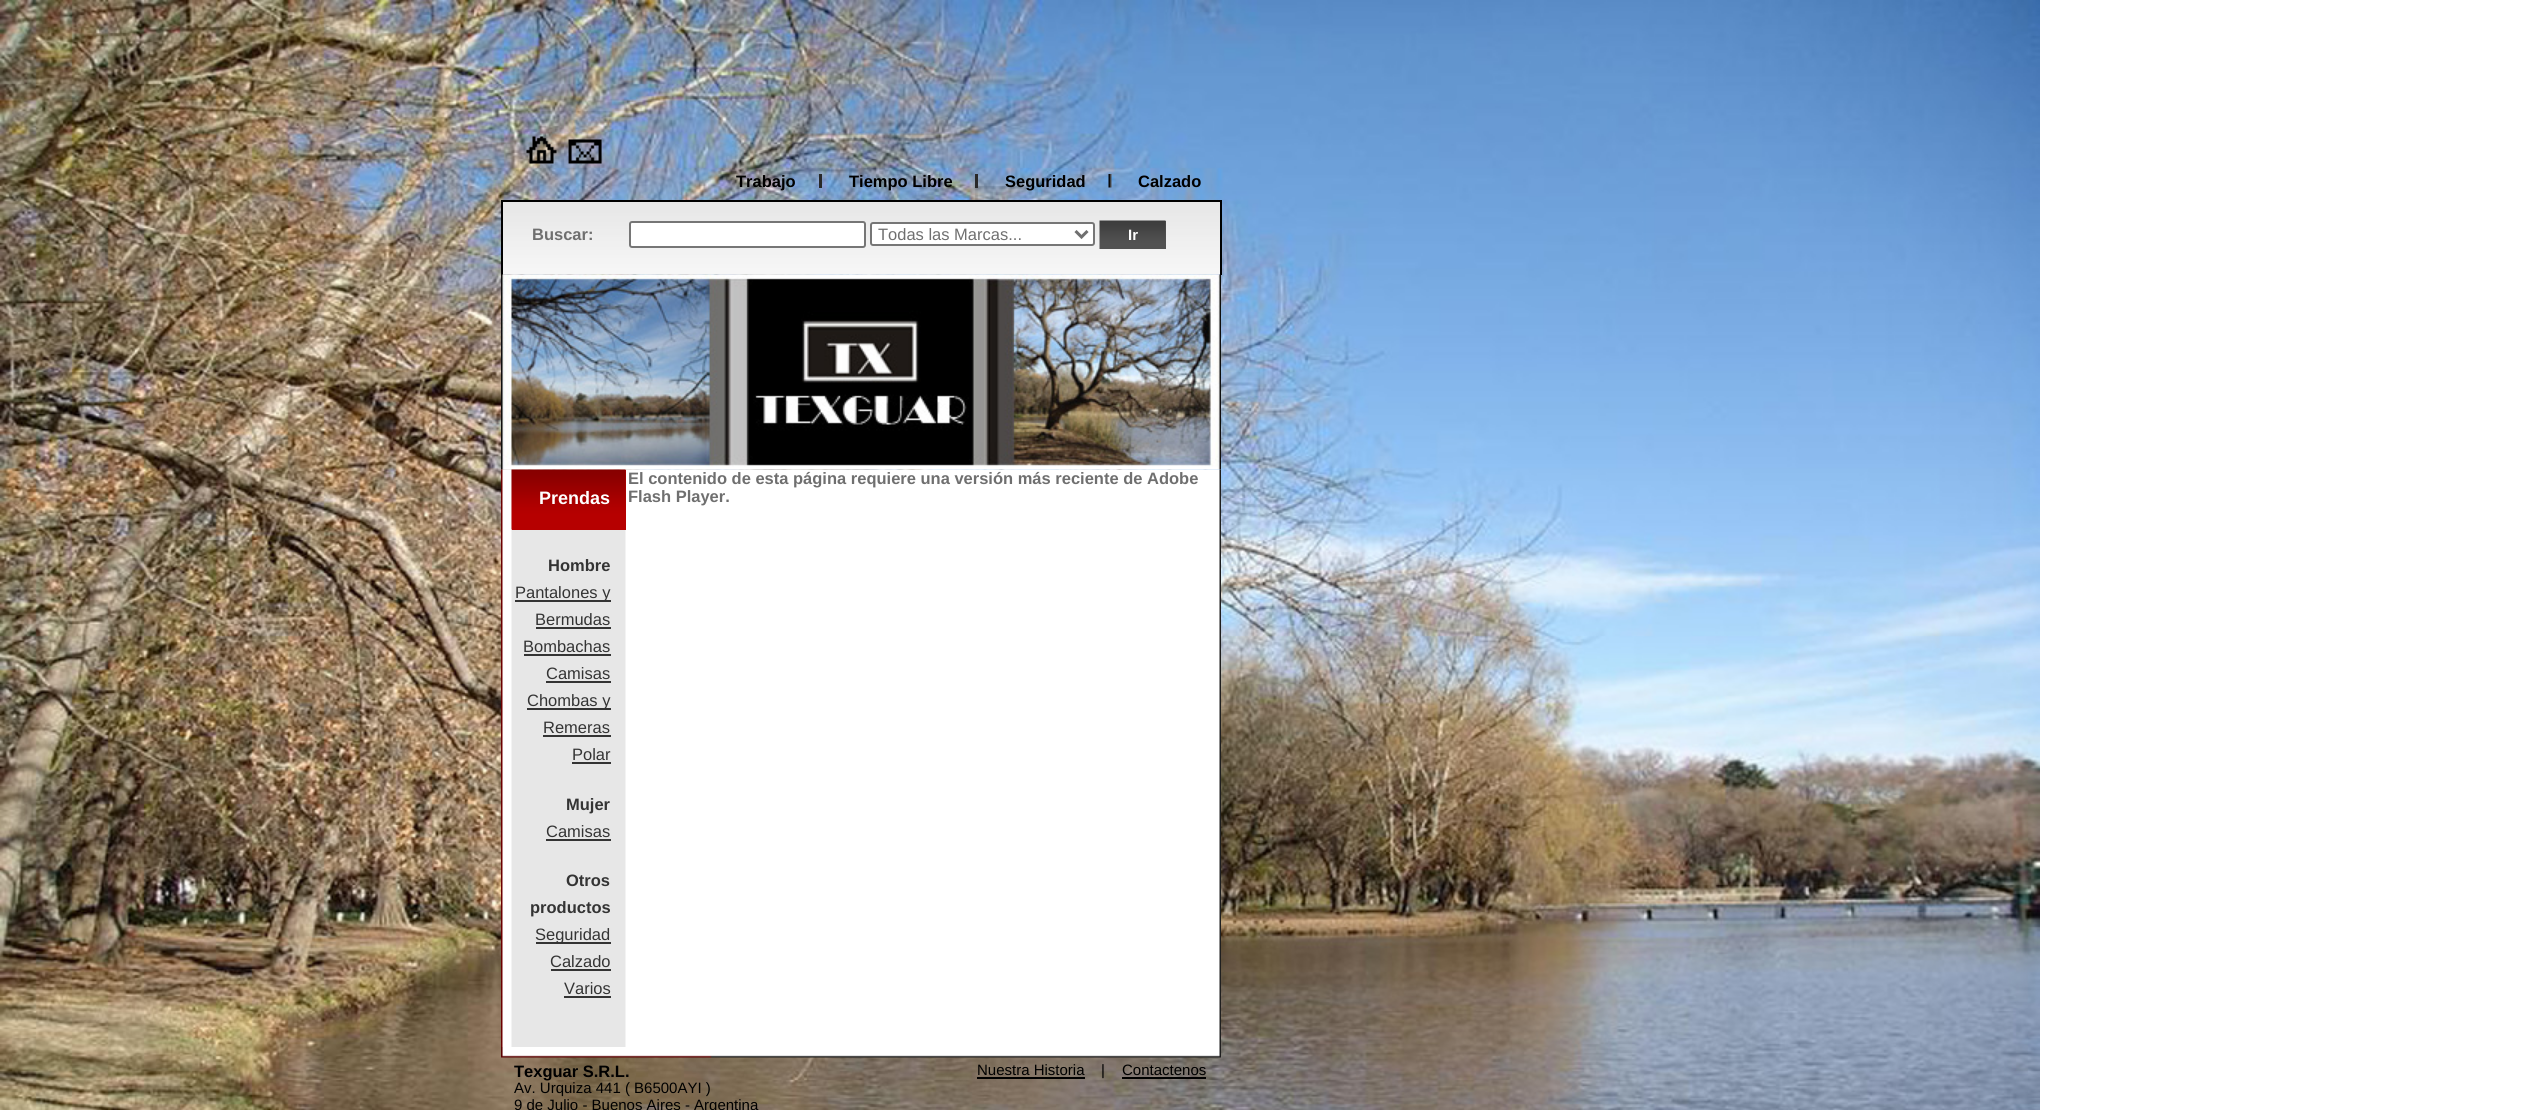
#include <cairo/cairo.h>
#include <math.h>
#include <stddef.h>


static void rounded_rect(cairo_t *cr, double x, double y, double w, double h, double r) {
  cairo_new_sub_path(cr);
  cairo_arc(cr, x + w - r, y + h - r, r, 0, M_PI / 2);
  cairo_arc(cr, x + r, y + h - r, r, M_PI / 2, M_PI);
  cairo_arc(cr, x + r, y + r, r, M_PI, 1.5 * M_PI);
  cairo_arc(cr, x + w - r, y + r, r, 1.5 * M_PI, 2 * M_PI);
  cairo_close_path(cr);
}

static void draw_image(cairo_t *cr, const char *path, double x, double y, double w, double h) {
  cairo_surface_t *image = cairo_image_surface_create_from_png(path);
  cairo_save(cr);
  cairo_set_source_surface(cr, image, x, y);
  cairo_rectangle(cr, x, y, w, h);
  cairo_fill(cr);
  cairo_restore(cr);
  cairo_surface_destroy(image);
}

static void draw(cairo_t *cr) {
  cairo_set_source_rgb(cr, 1, 1, 1);
  cairo_paint(cr);
  draw_image(cr, "images/1.png", 0, 0, 2040, 1110);
  draw_image(cr, "images/2.png", 526, 136, 31, 28);
  draw_image(cr, "images/3.png", 568, 139, 34, 25);
  cairo_set_source_rgb(cr, 41 / 255.0, 41 / 255.0, 41 / 255.0);
  cairo_rectangle(cr, 819, 174, 3, 14);
  cairo_fill(cr);
  cairo_rectangle(cr, 975, 174, 3, 14);
  cairo_fill(cr);
  draw_image(cr, "images/4.png", 1108, 174, 4, 14);
  draw_image(cr, "images/5.png", 503, 202, 717, 73);
  cairo_set_source_rgb(cr, 0, 0, 0);
  cairo_rectangle(cr, 501, 200, 720, 2);
  cairo_fill(cr);
  cairo_rectangle(cr, 1220, 200, 2, 75);
  cairo_fill(cr);
  cairo_rectangle(cr, 501, 200, 2, 75);
  cairo_fill(cr);
  cairo_set_source_rgb(cr, 1, 1, 1);
  rounded_rect(cr, 630, 222, 235, 25, 2);
  cairo_fill_preserve(cr);
  cairo_set_source_rgb(cr, 118 / 255.0, 118 / 255.0, 118 / 255.0);
  cairo_stroke(cr);
  cairo_set_source_rgb(cr, 1, 1, 1);
  rounded_rect(cr, 871, 223, 223, 22, 2);
  cairo_fill_preserve(cr);
  cairo_set_source_rgb(cr, 118 / 255.0, 118 / 255.0, 118 / 255.0);
  cairo_stroke(cr);
  cairo_new_path(cr);
  cairo_move_to(cr, 1075.5, 231);
  cairo_line_to(cr, 1081.5, 237);
  cairo_line_to(cr, 1087.5, 231);
  cairo_set_source_rgb(cr, 111 / 255.0, 111 / 255.0, 111 / 255.0);
  cairo_set_line_width(cr, 3);
  cairo_stroke(cr);
  cairo_set_source_rgb(cr, 82 / 255.0, 82 / 255.0, 82 / 255.0);
  cairo_rectangle(cr, 1165, 221, 1, 28);
  cairo_fill(cr);
  draw_image(cr, "images/6.png", 1099, 220, 67, 29);
  draw_image(cr, "images/7.png", 501, 274, 720, 196);
  draw_image(cr, "images/8.png", 501, 469, 720, 578);
  cairo_set_source_rgb(cr, 182 / 255.0, 0, 0);
  cairo_rectangle(cr, 512, 470, 114, 60);
  cairo_fill(cr);
  draw_image(cr, "images/9.png", 511, 469, 115, 61);
  cairo_set_source_rgb(cr, 52 / 255.0, 52 / 255.0, 52 / 255.0);
  cairo_rectangle(cr, 515, 600, 96, 2);
  cairo_fill(cr);
  cairo_rectangle(cr, 536, 627, 75, 2);
  cairo_fill(cr);
  cairo_rectangle(cr, 524, 654, 87, 2);
  cairo_fill(cr);
  cairo_rectangle(cr, 546, 681, 65, 2);
  cairo_fill(cr);
  cairo_rectangle(cr, 527, 708, 84, 2);
  cairo_fill(cr);
  cairo_rectangle(cr, 543, 735, 68, 2);
  cairo_fill(cr);
  cairo_rectangle(cr, 572, 762, 39, 2);
  cairo_fill(cr);
  cairo_rectangle(cr, 546, 839, 65, 2);
  cairo_fill(cr);
  cairo_rectangle(cr, 536, 942, 75, 2);
  cairo_fill(cr);
  cairo_rectangle(cr, 551, 969, 60, 2);
  cairo_fill(cr);
  cairo_rectangle(cr, 564, 996, 47, 2);
  cairo_fill(cr);
  draw_image(cr, "images/10.png", 501, 1047, 720, 11);
  cairo_set_source_rgb(cr, 0, 0, 0);
  cairo_rectangle(cr, 977, 1077, 108, 2);
  cairo_fill(cr);
  cairo_rectangle(cr, 1122, 1077, 84, 2);
  cairo_fill(cr);
  cairo_select_font_face(cr, "Liberation Sans", CAIRO_FONT_SLANT_NORMAL, CAIRO_FONT_WEIGHT_BOLD);
  cairo_set_font_size(cr, 16.5);
  cairo_move_to(cr, 736, 187);
  cairo_show_text(cr, "Trabajo");
  cairo_move_to(cr, 849, 187);
  cairo_show_text(cr, "Tiempo Libre");
  cairo_move_to(cr, 1005, 187);
  cairo_show_text(cr, "Seguridad");
  cairo_move_to(cr, 1138, 187);
  cairo_show_text(cr, "Calzado");
  cairo_set_source_rgb(cr, 111 / 255.0, 111 / 255.0, 111 / 255.0);
  cairo_move_to(cr, 532, 240);
  cairo_show_text(cr, "Buscar:");
  cairo_select_font_face(cr, "Liberation Sans", CAIRO_FONT_SLANT_NORMAL, CAIRO_FONT_WEIGHT_NORMAL);
  cairo_move_to(cr, 878, 240);
  cairo_show_text(cr, "Todas las Marcas...");
  cairo_select_font_face(cr, "Liberation Sans", CAIRO_FONT_SLANT_NORMAL, CAIRO_FONT_WEIGHT_BOLD);
  cairo_set_font_size(cr, 15);
  cairo_set_source_rgb(cr, 1, 1, 1);
  cairo_move_to(cr, 1128, 240);
  cairo_show_text(cr, "Ir");
  cairo_set_font_size(cr, 18);
  cairo_move_to(cr, 539, 504);
  cairo_show_text(cr, "Prendas");
  cairo_set_font_size(cr, 16.5);
  cairo_set_source_rgb(cr, 52 / 255.0, 52 / 255.0, 52 / 255.0);
  cairo_move_to(cr, 548, 571);
  cairo_show_text(cr, "Hombre");
  cairo_select_font_face(cr, "Liberation Sans", CAIRO_FONT_SLANT_NORMAL, CAIRO_FONT_WEIGHT_NORMAL);
  cairo_move_to(cr, 515, 598);
  cairo_show_text(cr, "Pantalones y");
  cairo_move_to(cr, 535, 625);
  cairo_show_text(cr, "Bermudas");
  cairo_move_to(cr, 523, 652);
  cairo_show_text(cr, "Bombachas");
  cairo_move_to(cr, 546, 679);
  cairo_show_text(cr, "Camisas");
  cairo_move_to(cr, 527, 706);
  cairo_show_text(cr, "Chombas y");
  cairo_move_to(cr, 543, 733);
  cairo_show_text(cr, "Remeras");
  cairo_move_to(cr, 572, 760);
  cairo_show_text(cr, "Polar");
  cairo_select_font_face(cr, "Liberation Sans", CAIRO_FONT_SLANT_NORMAL, CAIRO_FONT_WEIGHT_BOLD);
  cairo_move_to(cr, 566, 810);
  cairo_show_text(cr, "Mujer");
  cairo_select_font_face(cr, "Liberation Sans", CAIRO_FONT_SLANT_NORMAL, CAIRO_FONT_WEIGHT_NORMAL);
  cairo_move_to(cr, 546, 837);
  cairo_show_text(cr, "Camisas");
  cairo_select_font_face(cr, "Liberation Sans", CAIRO_FONT_SLANT_NORMAL, CAIRO_FONT_WEIGHT_BOLD);
  cairo_move_to(cr, 566, 886);
  cairo_show_text(cr, "Otros");
  cairo_move_to(cr, 530, 913);
  cairo_show_text(cr, "productos");
  cairo_select_font_face(cr, "Liberation Sans", CAIRO_FONT_SLANT_NORMAL, CAIRO_FONT_WEIGHT_NORMAL);
  cairo_move_to(cr, 535, 940);
  cairo_show_text(cr, "Seguridad");
  cairo_move_to(cr, 550, 967);
  cairo_show_text(cr, "Calzado");
  cairo_move_to(cr, 564, 994);
  cairo_show_text(cr, "Varios");
  cairo_select_font_face(cr, "Liberation Sans", CAIRO_FONT_SLANT_NORMAL, CAIRO_FONT_WEIGHT_BOLD);
  cairo_set_source_rgb(cr, 111 / 255.0, 111 / 255.0, 111 / 255.0);
  cairo_move_to(cr, 628, 484);
  cairo_show_text(cr, "El contenido de esta página requiere una versión más reciente de Adobe");
  cairo_move_to(cr, 628, 502);
  cairo_show_text(cr, "Flash Player.");
  cairo_set_source_rgb(cr, 0, 0, 0);
  cairo_move_to(cr, 514, 1077);
  cairo_show_text(cr, "Texguar S.R.L.");
  cairo_select_font_face(cr, "Liberation Sans", CAIRO_FONT_SLANT_NORMAL, CAIRO_FONT_WEIGHT_NORMAL);
  cairo_set_font_size(cr, 15);
  cairo_move_to(cr, 977, 1075);
  cairo_show_text(cr, "Nuestra Historia");
  cairo_move_to(cr, 1101, 1075);
  cairo_show_text(cr, "|");
  cairo_move_to(cr, 1122, 1075);
  cairo_show_text(cr, "Contactenos");
  cairo_move_to(cr, 514, 1093);
  cairo_show_text(cr, "Av. Urquiza 441 ( B6500AYI )");
  cairo_move_to(cr, 514, 1110);
  cairo_show_text(cr, "9 de Julio - Buenos Aires - Argentina");
}

int main(void) {
  cairo_surface_t *surface = cairo_image_surface_create(CAIRO_FORMAT_RGB24, 2548, 1110);
  cairo_t *cr = cairo_create(surface);
  cairo_font_options_t *options = cairo_font_options_create();
  cairo_font_options_set_hint_metrics(options, CAIRO_HINT_METRICS_OFF);
  cairo_font_options_set_hint_style(options, CAIRO_HINT_STYLE_NONE);
  cairo_set_font_options(cr, options);
  cairo_set_miter_limit(cr, 4);
  draw(cr);
  cairo_surface_write_to_png(surface, "out.png");
  cairo_font_options_destroy(options);
  cairo_destroy(cr);
  cairo_surface_destroy(surface);
  return 0;
}
